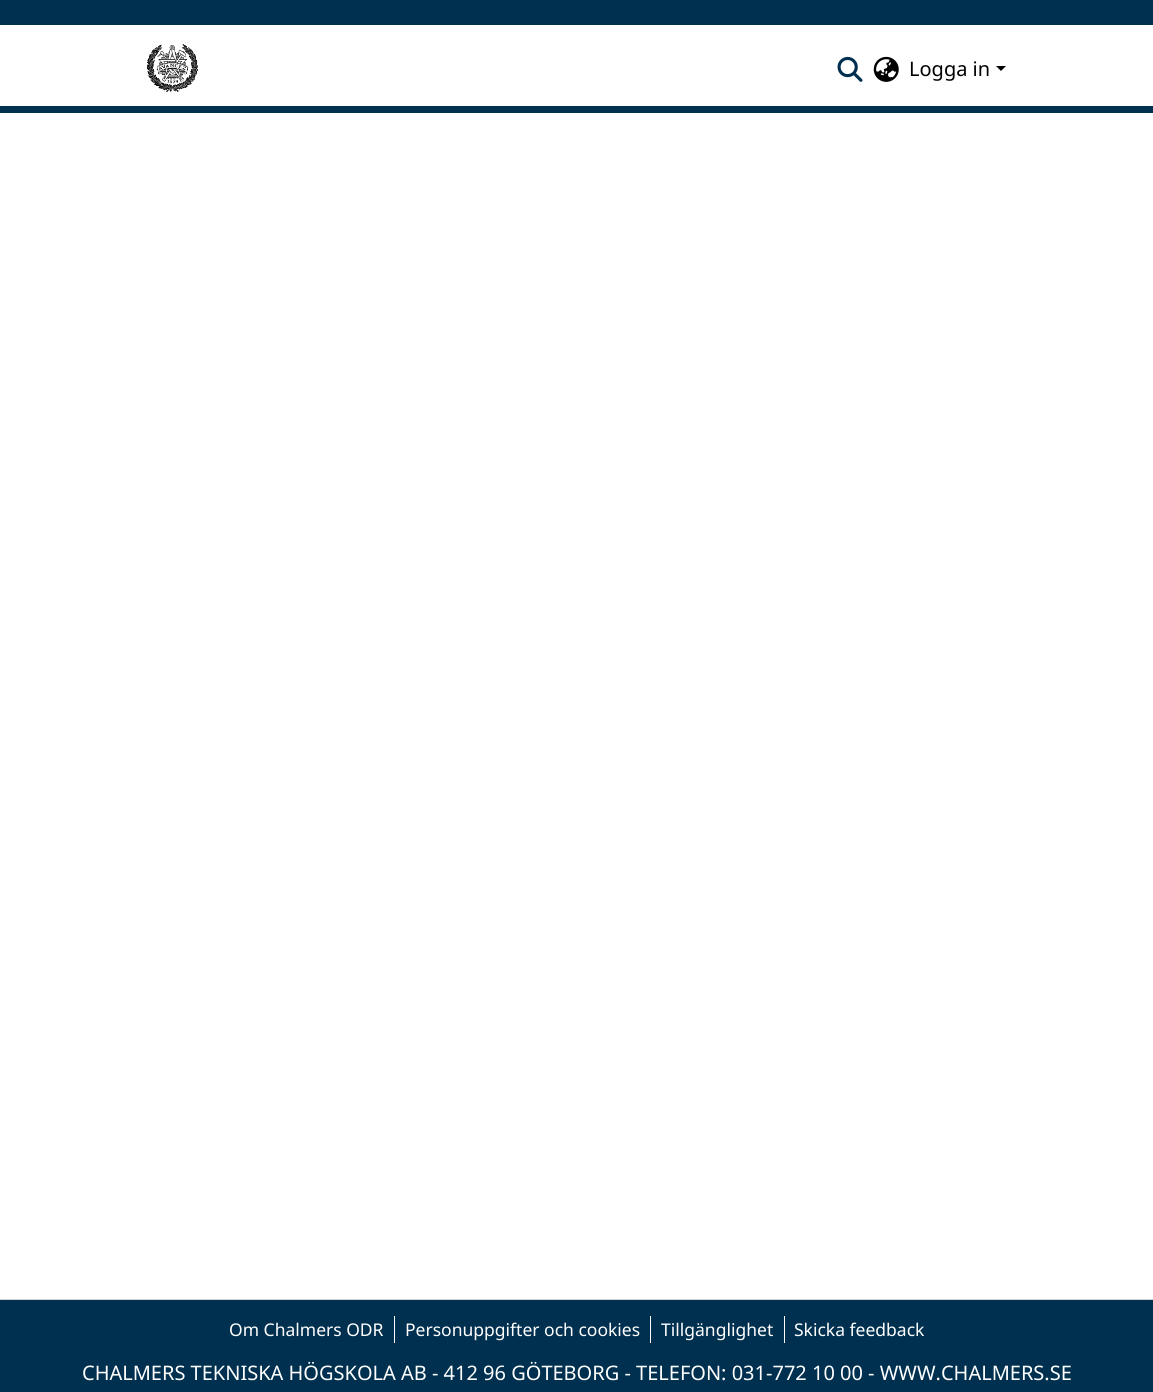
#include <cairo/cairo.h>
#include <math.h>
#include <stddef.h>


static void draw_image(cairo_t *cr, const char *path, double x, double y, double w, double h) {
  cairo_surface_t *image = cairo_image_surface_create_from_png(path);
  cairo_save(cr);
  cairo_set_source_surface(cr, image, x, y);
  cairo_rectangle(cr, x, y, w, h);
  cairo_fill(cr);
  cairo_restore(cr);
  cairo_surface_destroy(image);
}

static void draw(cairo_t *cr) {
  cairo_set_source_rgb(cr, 1, 1, 1);
  cairo_paint(cr);
  cairo_set_source_rgb(cr, 0, 48 / 255.0, 80 / 255.0);
  cairo_rectangle(cr, 0, 0, 1153, 25);
  cairo_fill(cr);
  cairo_rectangle(cr, 0, 106, 1153, 7);
  cairo_fill(cr);
  draw_image(cr, "images/1.png", 147, 44, 51, 49);
  draw_image(cr, "images/2.png", 837, 56, 26, 26);
  draw_image(cr, "images/3.png", 873, 56, 26, 26);
  cairo_set_source_rgb(cr, 0, 0, 0);
  cairo_new_path(cr);
  cairo_move_to(cr, 996, 66);
  cairo_line_to(cr, 1006, 66);
  cairo_line_to(cr, 1001, 71);
  cairo_close_path(cr);
  cairo_fill(cr);
  cairo_set_source_rgb(cr, 0, 48 / 255.0, 80 / 255.0);
  cairo_rectangle(cr, 0, 1300, 1153, 92);
  cairo_fill(cr);
  cairo_set_source_rgb(cr, 206 / 255.0, 212 / 255.0, 218 / 255.0);
  cairo_rectangle(cr, 0, 1299, 1153, 1);
  cairo_fill(cr);
  cairo_set_source_rgb(cr, 1, 1, 1);
  cairo_rectangle(cr, 394, 1316, 1, 27);
  cairo_fill(cr);
  cairo_rectangle(cr, 650, 1316, 1, 27);
  cairo_fill(cr);
  cairo_rectangle(cr, 784, 1316, 1, 27);
  cairo_fill(cr);
  cairo_select_font_face(cr, "Noto Sans", CAIRO_FONT_SLANT_NORMAL, CAIRO_FONT_WEIGHT_NORMAL);
  cairo_set_font_size(cr, 20);
  cairo_set_source_rgb(cr, 0, 0, 0);
  cairo_move_to(cr, 909, 76);
  cairo_show_text(cr, "Logga in");
  cairo_set_font_size(cr, 17.5);
  cairo_set_source_rgb(cr, 1, 1, 1);
  cairo_move_to(cr, 229, 1336);
  cairo_show_text(cr, "Om Chalmers ODR");
  cairo_move_to(cr, 405, 1336);
  cairo_show_text(cr, "Personuppgifter och cookies");
  cairo_move_to(cr, 661, 1336);
  cairo_show_text(cr, "Tillgänglighet");
  cairo_move_to(cr, 794, 1336);
  cairo_show_text(cr, "Skicka feedback");
  cairo_set_font_size(cr, 20);
  cairo_move_to(cr, 82, 1380);
  cairo_show_text(cr, "CHALMERS TEKNISKA HÖGSKOLA AB - 412 96 GÖTEBORG - TELEFON: 031-772 10 00 - WWW.CHALMERS.SE");
}

int main(void) {
  cairo_surface_t *surface = cairo_image_surface_create(CAIRO_FORMAT_RGB24, 1153, 1392);
  cairo_t *cr = cairo_create(surface);
  cairo_font_options_t *options = cairo_font_options_create();
  cairo_font_options_set_hint_metrics(options, CAIRO_HINT_METRICS_OFF);
  cairo_font_options_set_hint_style(options, CAIRO_HINT_STYLE_NONE);
  cairo_set_font_options(cr, options);
  cairo_set_miter_limit(cr, 4);
  draw(cr);
  cairo_surface_write_to_png(surface, "out.png");
  cairo_font_options_destroy(options);
  cairo_destroy(cr);
  cairo_surface_destroy(surface);
  return 0;
}
